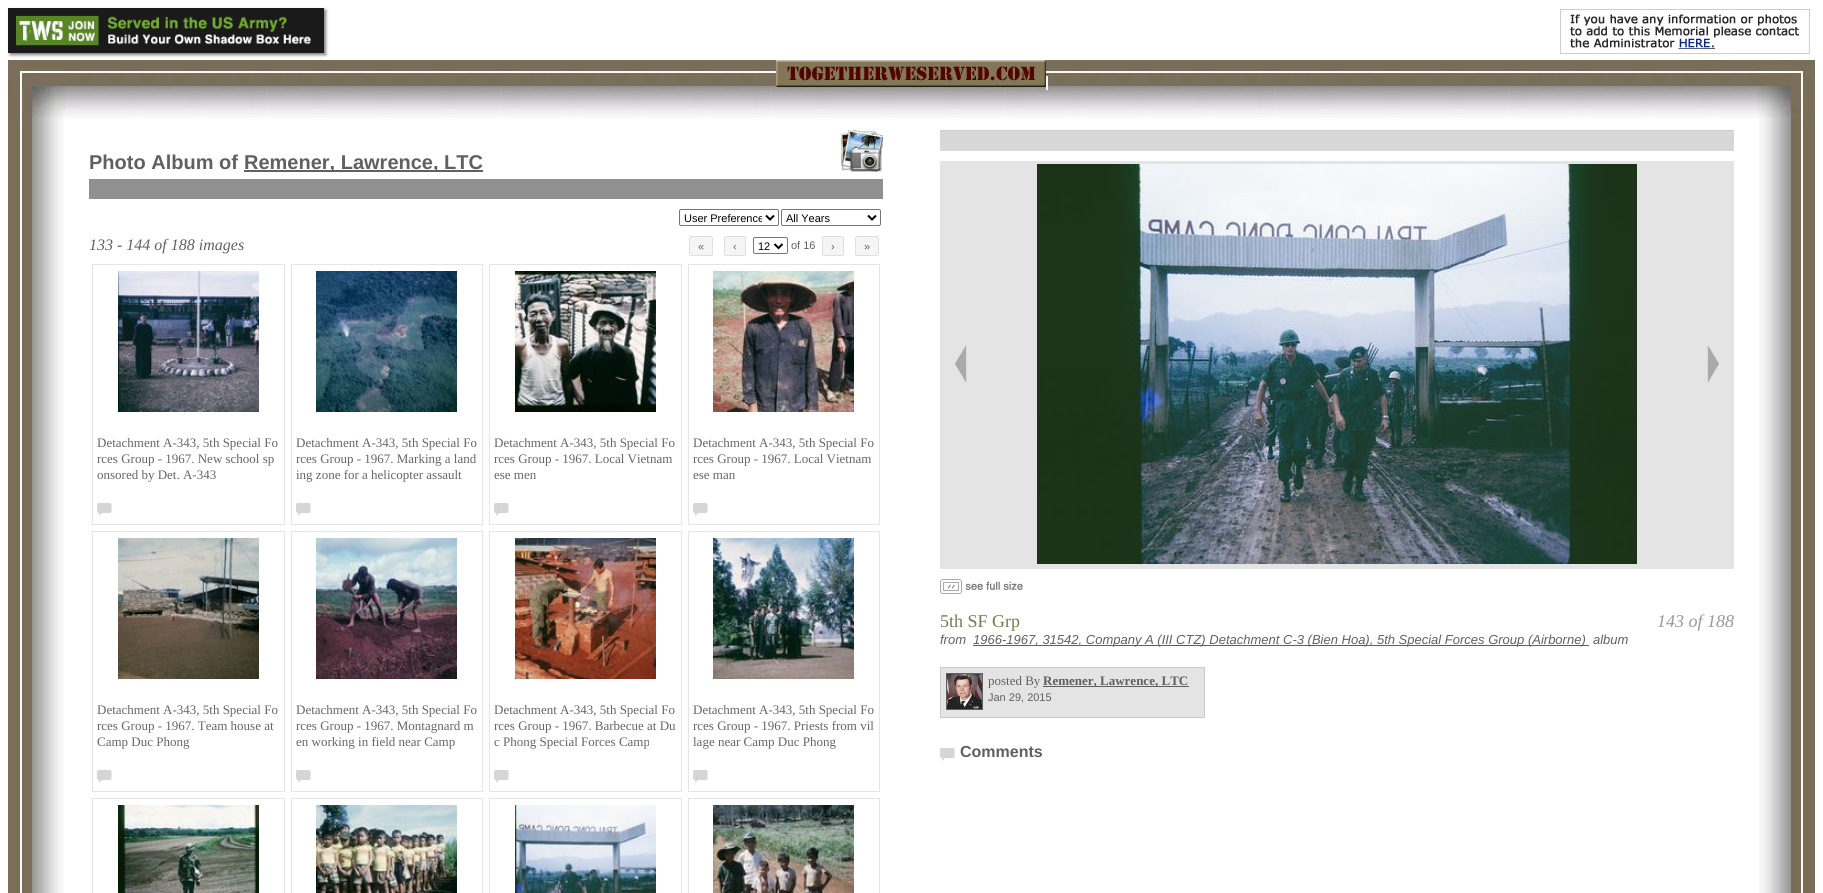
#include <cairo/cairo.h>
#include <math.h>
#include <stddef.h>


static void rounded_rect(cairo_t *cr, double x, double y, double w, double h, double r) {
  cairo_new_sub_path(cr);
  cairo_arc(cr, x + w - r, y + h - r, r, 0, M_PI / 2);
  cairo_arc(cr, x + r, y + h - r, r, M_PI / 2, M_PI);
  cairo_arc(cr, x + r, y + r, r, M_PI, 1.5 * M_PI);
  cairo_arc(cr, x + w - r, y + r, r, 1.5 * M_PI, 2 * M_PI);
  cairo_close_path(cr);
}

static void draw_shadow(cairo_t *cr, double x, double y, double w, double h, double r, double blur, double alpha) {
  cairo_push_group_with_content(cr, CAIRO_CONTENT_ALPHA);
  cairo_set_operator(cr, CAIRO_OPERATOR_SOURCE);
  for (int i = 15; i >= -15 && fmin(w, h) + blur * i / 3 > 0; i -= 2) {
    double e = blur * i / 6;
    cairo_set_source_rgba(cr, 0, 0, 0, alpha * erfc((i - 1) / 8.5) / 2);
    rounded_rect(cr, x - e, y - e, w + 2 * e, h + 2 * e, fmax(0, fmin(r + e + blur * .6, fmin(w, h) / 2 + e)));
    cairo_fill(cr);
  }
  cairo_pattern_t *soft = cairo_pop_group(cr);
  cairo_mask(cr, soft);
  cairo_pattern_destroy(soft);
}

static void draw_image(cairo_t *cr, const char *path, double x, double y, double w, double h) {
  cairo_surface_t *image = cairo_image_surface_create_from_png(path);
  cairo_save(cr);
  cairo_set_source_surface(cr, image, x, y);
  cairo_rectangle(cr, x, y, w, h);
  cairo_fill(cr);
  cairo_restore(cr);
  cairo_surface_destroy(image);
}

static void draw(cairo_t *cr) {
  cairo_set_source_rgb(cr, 1, 1, 1);
  cairo_paint(cr);
  draw_image(cr, "images/4.png", 66, 60, 1691, 58);
  cairo_set_source_rgb(cr, 0, 0, 0);
  draw_shadow(cr, 10, 10, 316, 45, 0, 1.5, 0.5);
  cairo_set_source_rgb(cr, 26 / 255.0, 26 / 255.0, 26 / 255.0);
  cairo_rectangle(cr, 8, 8, 316, 45);
  cairo_fill(cr);
  draw_image(cr, "images/1.png", 16, 15, 295, 31);
  draw_image(cr, "images/2.png", 1560, 9, 250, 45);
  draw_image(cr, "images/3.png", 8, 60, 58, 58);
  draw_image(cr, "images/5.png", 776, 60, 270, 27);
  cairo_set_source_rgb(cr, 1, 1, 1);
  cairo_rectangle(cr, 1046, 76, 2, 14);
  cairo_fill(cr);
  draw_image(cr, "images/6.png", 1757, 60, 58, 8);
  draw_image(cr, "images/7.png", 1757, 68, 58, 50);
  draw_image(cr, "images/8.png", 8, 118, 56, 775);
  cairo_set_source_rgb(cr, 96 / 255.0, 96 / 255.0, 96 / 255.0);
  cairo_rectangle(cr, 244, 170, 239, 2);
  cairo_fill(cr);
  draw_image(cr, "images/9.png", 841, 130, 42, 42);
  cairo_set_source_rgb(cr, 144 / 255.0, 144 / 255.0, 144 / 255.0);
  cairo_rectangle(cr, 89, 179, 794, 20);
  cairo_fill(cr);
  rounded_rect(cr, 679.5, 209.5, 99, 16, 1.5);
  cairo_set_source_rgb(cr, 118 / 255.0, 118 / 255.0, 118 / 255.0);
  cairo_set_line_width(cr, 1);
  cairo_stroke(cr);
  cairo_new_path(cr);
  cairo_move_to(cr, 766, 215.5);
  cairo_line_to(cr, 770, 219.5);
  cairo_line_to(cr, 774, 215.5);
  cairo_set_source_rgb(cr, 0, 0, 0);
  cairo_set_line_width(cr, 2);
  cairo_stroke(cr);
  rounded_rect(cr, 781.5, 209.5, 99, 16, 1.5);
  cairo_set_source_rgb(cr, 118 / 255.0, 118 / 255.0, 118 / 255.0);
  cairo_set_line_width(cr, 1);
  cairo_stroke(cr);
  cairo_new_path(cr);
  cairo_move_to(cr, 868, 215.5);
  cairo_line_to(cr, 872, 219.5);
  cairo_line_to(cr, 876, 215.5);
  cairo_set_source_rgb(cr, 0, 0, 0);
  cairo_set_line_width(cr, 2);
  cairo_stroke(cr);
  cairo_set_source_rgb(cr, 245 / 255.0, 245 / 255.0, 245 / 255.0);
  rounded_rect(cr, 689.5, 236.5, 23, 19, 1.5);
  cairo_fill_preserve(cr);
  cairo_set_source_rgb(cr, 223 / 255.0, 223 / 255.0, 223 / 255.0);
  cairo_set_line_width(cr, 1);
  cairo_stroke(cr);
  cairo_set_source_rgb(cr, 245 / 255.0, 245 / 255.0, 245 / 255.0);
  rounded_rect(cr, 724.5, 236.5, 21, 19, 1.5);
  cairo_fill_preserve(cr);
  cairo_set_source_rgb(cr, 223 / 255.0, 223 / 255.0, 223 / 255.0);
  cairo_stroke(cr);
  rounded_rect(cr, 753.5, 237.5, 34, 16, 1.5);
  cairo_set_source_rgb(cr, 118 / 255.0, 118 / 255.0, 118 / 255.0);
  cairo_stroke(cr);
  cairo_new_path(cr);
  cairo_move_to(cr, 774.5, 244);
  cairo_line_to(cr, 778.5, 248);
  cairo_line_to(cr, 782.5, 244);
  cairo_set_source_rgb(cr, 0, 0, 0);
  cairo_set_line_width(cr, 2);
  cairo_stroke(cr);
  cairo_set_source_rgb(cr, 245 / 255.0, 245 / 255.0, 245 / 255.0);
  rounded_rect(cr, 822.5, 236.5, 21, 19, 1.5);
  cairo_fill_preserve(cr);
  cairo_set_source_rgb(cr, 223 / 255.0, 223 / 255.0, 223 / 255.0);
  cairo_set_line_width(cr, 1);
  cairo_stroke(cr);
  cairo_set_source_rgb(cr, 245 / 255.0, 245 / 255.0, 245 / 255.0);
  rounded_rect(cr, 855.5, 236.5, 23, 19, 1.5);
  cairo_fill_preserve(cr);
  cairo_set_source_rgb(cr, 223 / 255.0, 223 / 255.0, 223 / 255.0);
  cairo_stroke(cr);
  cairo_rectangle(cr, 92.5, 264.5, 192, 260);
  cairo_set_source_rgb(cr, 229 / 255.0, 229 / 255.0, 229 / 255.0);
  cairo_stroke(cr);
  draw_image(cr, "images/10.png", 118, 271, 141, 141);
  draw_image(cr, "images/11.png", 97, 503, 15, 13);
  cairo_rectangle(cr, 291.5, 264.5, 191, 260);
  cairo_stroke(cr);
  draw_image(cr, "images/12.png", 316, 271, 141, 141);
  draw_image(cr, "images/11.png", 296, 503, 15, 13);
  cairo_rectangle(cr, 489.5, 264.5, 192, 260);
  cairo_stroke(cr);
  draw_image(cr, "images/13.png", 515, 271, 141, 141);
  draw_image(cr, "images/11.png", 494, 503, 15, 13);
  cairo_rectangle(cr, 688.5, 264.5, 191, 260);
  cairo_stroke(cr);
  draw_image(cr, "images/14.png", 713, 271, 141, 141);
  draw_image(cr, "images/11.png", 693, 503, 15, 13);
  cairo_rectangle(cr, 92.5, 531.5, 192, 260);
  cairo_stroke(cr);
  draw_image(cr, "images/15.png", 118, 538, 141, 141);
  draw_image(cr, "images/11.png", 97, 770, 15, 13);
  cairo_rectangle(cr, 291.5, 531.5, 191, 260);
  cairo_stroke(cr);
  draw_image(cr, "images/16.png", 316, 538, 141, 141);
  draw_image(cr, "images/11.png", 296, 770, 15, 13);
  cairo_rectangle(cr, 489.5, 531.5, 192, 260);
  cairo_stroke(cr);
  draw_image(cr, "images/17.png", 515, 538, 141, 141);
  draw_image(cr, "images/11.png", 494, 770, 15, 13);
  cairo_rectangle(cr, 688.5, 531.5, 191, 260);
  cairo_stroke(cr);
  draw_image(cr, "images/18.png", 713, 538, 141, 141);
  draw_image(cr, "images/11.png", 693, 770, 15, 13);
  cairo_rectangle(cr, 92.5, 798.5, 192, 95);
  cairo_stroke(cr);
  draw_image(cr, "images/19.png", 118, 805, 141, 88);
  cairo_rectangle(cr, 291.5, 798.5, 191, 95);
  cairo_stroke(cr);
  draw_image(cr, "images/20.png", 316, 805, 141, 88);
  cairo_rectangle(cr, 489.5, 798.5, 192, 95);
  cairo_stroke(cr);
  draw_image(cr, "images/21.png", 515, 805, 141, 88);
  cairo_rectangle(cr, 688.5, 798.5, 191, 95);
  cairo_stroke(cr);
  draw_image(cr, "images/22.png", 713, 805, 141, 88);
  cairo_set_source_rgb(cr, 214 / 255.0, 215 / 255.0, 214 / 255.0);
  cairo_rectangle(cr, 940, 131, 794, 20);
  cairo_fill(cr);
  cairo_set_source_rgb(cr, 204 / 255.0, 204 / 255.0, 204 / 255.0);
  cairo_rectangle(cr, 940, 130, 794, 1);
  cairo_fill(cr);
  cairo_set_source_rgb(cr, 228 / 255.0, 228 / 255.0, 228 / 255.0);
  cairo_rectangle(cr, 940, 161, 794, 408);
  cairo_fill(cr);
  draw_image(cr, "images/23.png", 955, 346, 12, 37);
  draw_image(cr, "images/24.png", 1037, 164, 600, 400);
  draw_image(cr, "images/25.png", 1707, 346, 12, 37);
  draw_image(cr, "images/26.png", 940, 579, 83, 15);
  cairo_set_source_rgb(cr, 96 / 255.0, 96 / 255.0, 96 / 255.0);
  cairo_rectangle(cr, 973, 645, 616, 1);
  cairo_fill(cr);
  cairo_set_source_rgb(cr, 228 / 255.0, 228 / 255.0, 228 / 255.0);
  cairo_rectangle(cr, 940.5, 667.5, 264, 50);
  cairo_fill_preserve(cr);
  cairo_set_source_rgb(cr, 202 / 255.0, 202 / 255.0, 202 / 255.0);
  cairo_stroke(cr);
  cairo_rectangle(cr, 946.5, 673.5, 36, 36);
  cairo_set_source_rgb(cr, 96 / 255.0, 96 / 255.0, 96 / 255.0);
  cairo_stroke(cr);
  draw_image(cr, "images/27.png", 947, 674, 35, 35);
  cairo_rectangle(cr, 1043, 686, 112, 1);
  cairo_fill(cr);
  cairo_rectangle(cr, 1155, 686, 34, 1);
  cairo_fill(cr);
  draw_image(cr, "images/11.png", 940, 748, 15, 13);
  draw_image(cr, "images/28.png", 1759, 118, 56, 775);
  cairo_select_font_face(cr, "Liberation Sans", CAIRO_FONT_SLANT_NORMAL, CAIRO_FONT_WEIGHT_BOLD);
  cairo_set_font_size(cr, 20);
  cairo_move_to(cr, 89, 169);
  cairo_show_text(cr, "Photo Album of");
  cairo_move_to(cr, 244, 169);
  cairo_show_text(cr, "Remener, Lawrence, LTC");
  cairo_save(cr);
  cairo_rectangle(cr, 684, 211, 78, 14);
  cairo_clip(cr);
  cairo_select_font_face(cr, "Liberation Sans", CAIRO_FONT_SLANT_NORMAL, CAIRO_FONT_WEIGHT_NORMAL);
  cairo_set_font_size(cr, 11);
  cairo_set_source_rgb(cr, 0, 0, 0);
  cairo_move_to(cr, 684, 222);
  cairo_show_text(cr, "User Preference");
  cairo_restore(cr);
  cairo_select_font_face(cr, "Liberation Sans", CAIRO_FONT_SLANT_NORMAL, CAIRO_FONT_WEIGHT_NORMAL);
  cairo_set_font_size(cr, 11);
  cairo_set_source_rgb(cr, 0, 0, 0);
  cairo_move_to(cr, 786, 222);
  cairo_show_text(cr, "All Years");
  cairo_select_font_face(cr, "Liberation Serif", CAIRO_FONT_SLANT_ITALIC, CAIRO_FONT_WEIGHT_NORMAL);
  cairo_set_font_size(cr, 16);
  cairo_set_source_rgb(cr, 96 / 255.0, 96 / 255.0, 96 / 255.0);
  cairo_move_to(cr, 89, 250);
  cairo_show_text(cr, "133 - 144 of 188 images");
  cairo_select_font_face(cr, "Liberation Sans", CAIRO_FONT_SLANT_NORMAL, CAIRO_FONT_WEIGHT_NORMAL);
  cairo_set_font_size(cr, 11);
  cairo_move_to(cr, 698, 250);
  cairo_show_text(cr, "«");
  cairo_move_to(cr, 733, 250);
  cairo_show_text(cr, "‹");
  cairo_set_source_rgb(cr, 0, 0, 0);
  cairo_move_to(cr, 758, 250);
  cairo_show_text(cr, "12");
  cairo_set_source_rgb(cr, 96 / 255.0, 96 / 255.0, 96 / 255.0);
  cairo_move_to(cr, 791, 249);
  cairo_show_text(cr, "of 16");
  cairo_move_to(cr, 831, 250);
  cairo_show_text(cr, "›");
  cairo_move_to(cr, 864, 250);
  cairo_show_text(cr, "»");
  cairo_select_font_face(cr, "Liberation Serif", CAIRO_FONT_SLANT_NORMAL, CAIRO_FONT_WEIGHT_NORMAL);
  cairo_set_font_size(cr, 13);
  cairo_set_source_rgb(cr, 102 / 255.0, 102 / 255.0, 102 / 255.0);
  cairo_move_to(cr, 97, 447);
  cairo_show_text(cr, "Detachment A-343, 5th Special Fo");
  cairo_move_to(cr, 97, 463);
  cairo_show_text(cr, "rces Group - 1967. New school sp");
  cairo_move_to(cr, 97, 479);
  cairo_show_text(cr, "onsored by Det. A-343");
  cairo_move_to(cr, 296, 447);
  cairo_show_text(cr, "Detachment A-343, 5th Special Fo");
  cairo_move_to(cr, 296, 463);
  cairo_show_text(cr, "rces Group - 1967. Marking a land");
  cairo_move_to(cr, 296, 479);
  cairo_show_text(cr, "ing zone for a helicopter assault");
  cairo_move_to(cr, 494, 447);
  cairo_show_text(cr, "Detachment A-343, 5th Special Fo");
  cairo_move_to(cr, 494, 463);
  cairo_show_text(cr, "rces Group - 1967. Local Vietnam");
  cairo_move_to(cr, 494, 479);
  cairo_show_text(cr, "ese men");
  cairo_move_to(cr, 693, 447);
  cairo_show_text(cr, "Detachment A-343, 5th Special Fo");
  cairo_move_to(cr, 693, 463);
  cairo_show_text(cr, "rces Group - 1967. Local Vietnam");
  cairo_move_to(cr, 693, 479);
  cairo_show_text(cr, "ese man");
  cairo_move_to(cr, 97, 714);
  cairo_show_text(cr, "Detachment A-343, 5th Special Fo");
  cairo_move_to(cr, 97, 730);
  cairo_show_text(cr, "rces Group - 1967. Team house at");
  cairo_move_to(cr, 97, 746);
  cairo_show_text(cr, "Camp Duc Phong");
  cairo_move_to(cr, 296, 714);
  cairo_show_text(cr, "Detachment A-343, 5th Special Fo");
  cairo_move_to(cr, 296, 730);
  cairo_show_text(cr, "rces Group - 1967. Montagnard m");
  cairo_move_to(cr, 296, 746);
  cairo_show_text(cr, "en working in field near Camp");
  cairo_move_to(cr, 494, 714);
  cairo_show_text(cr, "Detachment A-343, 5th Special Fo");
  cairo_move_to(cr, 494, 730);
  cairo_show_text(cr, "rces Group - 1967. Barbecue at Du");
  cairo_move_to(cr, 494, 746);
  cairo_show_text(cr, "c Phong Special Forces Camp");
  cairo_move_to(cr, 693, 714);
  cairo_show_text(cr, "Detachment A-343, 5th Special Fo");
  cairo_move_to(cr, 693, 730);
  cairo_show_text(cr, "rces Group - 1967. Priests from vil");
  cairo_move_to(cr, 693, 746);
  cairo_show_text(cr, "lage near Camp Duc Phong");
  cairo_set_font_size(cr, 18);
  cairo_set_source_rgb(cr, 120 / 255.0, 122 / 255.0, 76 / 255.0);
  cairo_move_to(cr, 940, 627);
  cairo_show_text(cr, "5th SF Grp");
  cairo_select_font_face(cr, "Liberation Serif", CAIRO_FONT_SLANT_ITALIC, CAIRO_FONT_WEIGHT_NORMAL);
  cairo_set_source_rgb(cr, 153 / 255.0, 153 / 255.0, 153 / 255.0);
  cairo_move_to(cr, 1657, 627);
  cairo_show_text(cr, "143 of 188");
  cairo_select_font_face(cr, "Liberation Sans", CAIRO_FONT_SLANT_ITALIC, CAIRO_FONT_WEIGHT_NORMAL);
  cairo_set_font_size(cr, 13);
  cairo_set_source_rgb(cr, 96 / 255.0, 96 / 255.0, 96 / 255.0);
  cairo_move_to(cr, 940, 644);
  cairo_show_text(cr, "from");
  cairo_move_to(cr, 973, 644);
  cairo_show_text(cr, "1966-1967, 31542, Company A (III CTZ) Detachment C-3 (Bien Hoa), 5th Special Forces Group (Airborne)");
  cairo_move_to(cr, 1593, 644);
  cairo_show_text(cr, "album");
  cairo_select_font_face(cr, "Liberation Serif", CAIRO_FONT_SLANT_NORMAL, CAIRO_FONT_WEIGHT_NORMAL);
  cairo_move_to(cr, 988, 685);
  cairo_show_text(cr, "posted By");
  cairo_select_font_face(cr, "Liberation Serif", CAIRO_FONT_SLANT_NORMAL, CAIRO_FONT_WEIGHT_BOLD);
  cairo_move_to(cr, 1043, 685);
  cairo_show_text(cr, "Remener, Lawrence");
  cairo_move_to(cr, 1155, 685);
  cairo_show_text(cr, ", LTC");
  cairo_select_font_face(cr, "Liberation Sans", CAIRO_FONT_SLANT_NORMAL, CAIRO_FONT_WEIGHT_NORMAL);
  cairo_set_font_size(cr, 11);
  cairo_move_to(cr, 988, 701);
  cairo_show_text(cr, "Jan 29, 2015");
  cairo_select_font_face(cr, "Liberation Sans", CAIRO_FONT_SLANT_NORMAL, CAIRO_FONT_WEIGHT_BOLD);
  cairo_set_font_size(cr, 16);
  cairo_move_to(cr, 960, 757);
  cairo_show_text(cr, "Comments");
}

int main(void) {
  cairo_surface_t *surface = cairo_image_surface_create(CAIRO_FORMAT_RGB24, 1823, 893);
  cairo_t *cr = cairo_create(surface);
  cairo_font_options_t *options = cairo_font_options_create();
  cairo_font_options_set_hint_metrics(options, CAIRO_HINT_METRICS_OFF);
  cairo_font_options_set_hint_style(options, CAIRO_HINT_STYLE_NONE);
  cairo_set_font_options(cr, options);
  cairo_set_miter_limit(cr, 4);
  draw(cr);
  cairo_surface_write_to_png(surface, "out.png");
  cairo_font_options_destroy(options);
  cairo_destroy(cr);
  cairo_surface_destroy(surface);
  return 0;
}
